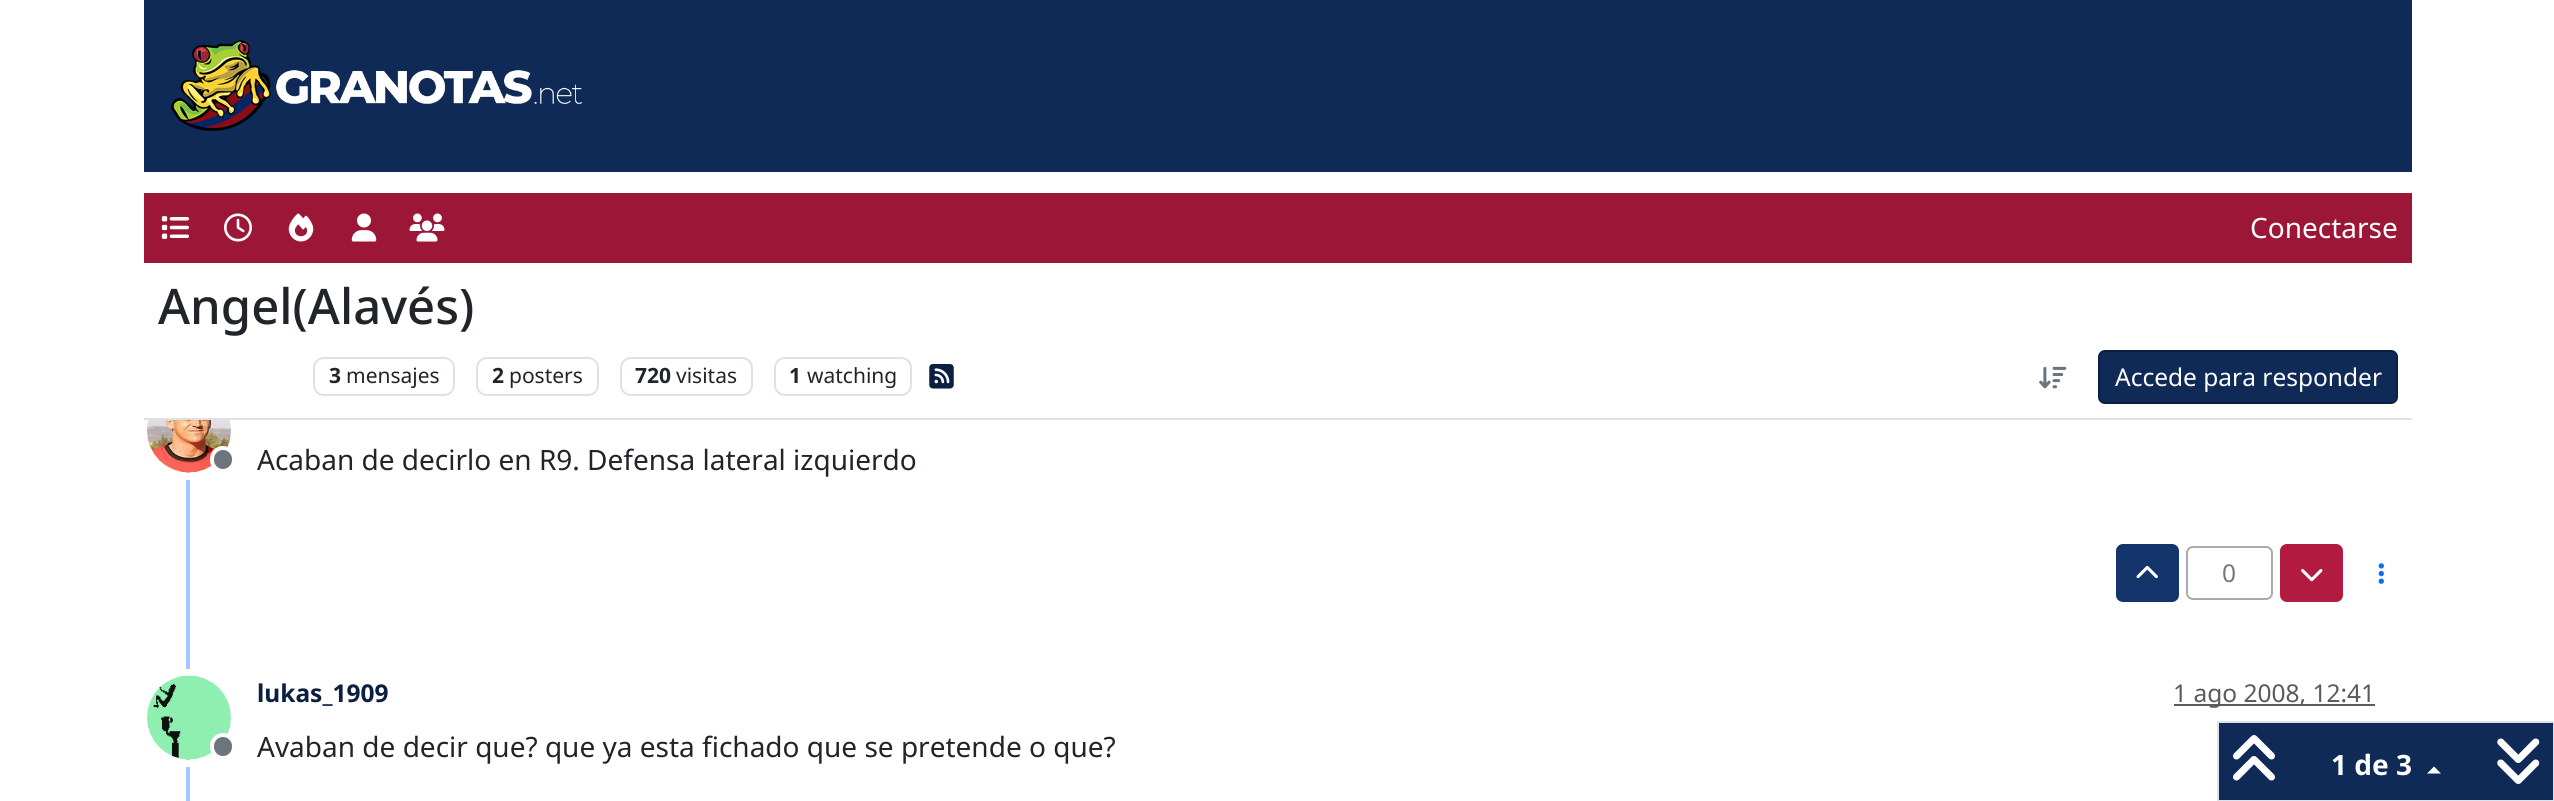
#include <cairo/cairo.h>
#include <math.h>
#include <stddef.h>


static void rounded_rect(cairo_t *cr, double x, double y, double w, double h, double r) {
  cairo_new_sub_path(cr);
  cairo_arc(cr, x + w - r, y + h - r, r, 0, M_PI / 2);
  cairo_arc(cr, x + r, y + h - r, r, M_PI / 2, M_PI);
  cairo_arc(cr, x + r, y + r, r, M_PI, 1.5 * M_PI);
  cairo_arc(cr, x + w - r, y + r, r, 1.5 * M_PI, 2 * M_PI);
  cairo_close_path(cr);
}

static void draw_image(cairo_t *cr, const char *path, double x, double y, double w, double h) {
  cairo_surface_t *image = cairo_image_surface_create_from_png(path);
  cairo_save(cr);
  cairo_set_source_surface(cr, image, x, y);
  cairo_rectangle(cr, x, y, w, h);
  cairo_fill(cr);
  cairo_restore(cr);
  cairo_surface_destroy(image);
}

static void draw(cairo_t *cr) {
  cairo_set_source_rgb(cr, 1, 1, 1);
  cairo_paint(cr);
  cairo_set_source_rgb(cr, 15 / 255.0, 42 / 255.0, 86 / 255.0);
  cairo_rectangle(cr, 144, 0, 2268, 172);
  cairo_fill(cr);
  draw_image(cr, "images/1.png", 171, 40, 412, 91);
  cairo_set_source_rgb(cr, 156 / 255.0, 23 / 255.0, 55 / 255.0);
  cairo_rectangle(cr, 144, 193, 2268, 70);
  cairo_fill(cr);
  draw_image(cr, "images/2.png", 161, 216, 28, 23);
  draw_image(cr, "images/3.png", 224, 213, 28, 29);
  draw_image(cr, "images/4.png", 288, 213, 26, 29);
  draw_image(cr, "images/5.png", 351, 213, 26, 29);
  draw_image(cr, "images/6.png", 409, 213, 36, 29);
  cairo_set_source_rgb(cr, 165 / 255.0, 201 / 255.0, 254 / 255.0);
  cairo_rectangle(cr, 186, 472, 4, 329);
  cairo_fill(cr);
  cairo_arc(cr, 189, 431, 45.5, 0, 2 * M_PI);
  cairo_set_source_rgb(cr, 1, 1, 1);
  cairo_set_line_width(cr, 7);
  cairo_stroke(cr);
  cairo_set_source_rgb(cr, 222 / 255.0, 226 / 255.0, 230 / 255.0);
  cairo_rectangle(cr, 144, 418, 2268, 2);
  cairo_fill(cr);
  rounded_rect(cr, 314, 358, 140, 37, 10);
  cairo_set_line_width(cr, 2);
  cairo_stroke(cr);
  rounded_rect(cr, 477, 358, 121, 37, 10);
  cairo_stroke(cr);
  rounded_rect(cr, 621, 358, 131, 37, 10);
  cairo_stroke(cr);
  rounded_rect(cr, 775, 358, 136, 37, 10);
  cairo_stroke(cr);
  draw_image(cr, "images/7.png", 929, 364, 25, 25);
  draw_image(cr, "images/8.png", 2039, 366, 28, 23);
  cairo_set_source_rgb(cr, 15 / 255.0, 42 / 255.0, 86 / 255.0);
  rounded_rect(cr, 2099, 351, 298, 52, 6);
  cairo_fill_preserve(cr);
  cairo_set_source_rgb(cr, 11 / 255.0, 31 / 255.0, 64 / 255.0);
  cairo_stroke(cr);
  draw_image(cr, "images/9.png", 147, 420, 84, 53);
  cairo_set_source_rgb(cr, 108 / 255.0, 117 / 255.0, 125 / 255.0);
  rounded_rect(cr, 212, 448, 22, 23, 11);
  cairo_fill_preserve(cr);
  cairo_set_source_rgb(cr, 1, 1, 1);
  cairo_set_line_width(cr, 4);
  cairo_stroke(cr);
  cairo_set_source_rgb(cr, 19 / 255.0, 53 / 255.0, 108 / 255.0);
  rounded_rect(cr, 2116, 544, 63, 58, 7);
  cairo_fill(cr);
  draw_image(cr, "images/10.png", 2136, 565, 22, 14);
  rounded_rect(cr, 2187, 547, 85, 52, 6);
  cairo_set_source_rgb(cr, 170 / 255.0, 170 / 255.0, 170 / 255.0);
  cairo_set_line_width(cr, 2);
  cairo_stroke(cr);
  cairo_set_source_rgb(cr, 178 / 255.0, 26 / 255.0, 63 / 255.0);
  rounded_rect(cr, 2280, 544, 63, 58, 7);
  cairo_fill(cr);
  draw_image(cr, "images/11.png", 2301, 569, 22, 13);
  draw_image(cr, "images/12.png", 2378, 563, 6, 21);
  cairo_arc(cr, 189, 718, 45.5, 0, 2 * M_PI);
  cairo_set_source_rgb(cr, 1, 1, 1);
  cairo_set_line_width(cr, 7);
  cairo_stroke(cr);
  draw_image(cr, "images/13.png", 147, 675, 84, 85);
  cairo_set_source_rgb(cr, 108 / 255.0, 117 / 255.0, 125 / 255.0);
  rounded_rect(cr, 212, 735, 22, 23, 11);
  cairo_fill_preserve(cr);
  cairo_set_source_rgb(cr, 1, 1, 1);
  cairo_set_line_width(cr, 4);
  cairo_stroke(cr);
  cairo_set_source_rgb(cr, 89 / 255.0, 92 / 255.0, 95 / 255.0);
  cairo_rectangle(cr, 2174, 704, 201, 2);
  cairo_fill(cr);
  cairo_set_source_rgb(cr, 15 / 255.0, 42 / 255.0, 86 / 255.0);
  cairo_rectangle(cr, 2218, 722, 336, 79);
  cairo_fill_preserve(cr);
  cairo_set_source_rgb(cr, 222 / 255.0, 226 / 255.0, 230 / 255.0);
  cairo_set_line_width(cr, 2);
  cairo_stroke(cr);
  draw_image(cr, "images/14.png", 2233, 735, 42, 46);
  cairo_set_source_rgb(cr, 1, 1, 1);
  cairo_new_path(cr);
  cairo_move_to(cr, 2441, 773.5);
  cairo_line_to(cr, 2427, 773.5);
  cairo_line_to(cr, 2434, 766.5);
  cairo_close_path(cr);
  cairo_fill(cr);
  draw_image(cr, "images/15.png", 2497, 738, 43, 46);
  cairo_select_font_face(cr, "Noto Sans", CAIRO_FONT_SLANT_NORMAL, CAIRO_FONT_WEIGHT_NORMAL);
  cairo_set_font_size(cr, 28);
  cairo_move_to(cr, 2250, 238);
  cairo_show_text(cr, "Conectarse");
  cairo_select_font_face(cr, "Noto Sans Medium", CAIRO_FONT_SLANT_NORMAL, CAIRO_FONT_WEIGHT_NORMAL);
  cairo_set_font_size(cr, 49);
  cairo_set_source_rgb(cr, 33 / 255.0, 37 / 255.0, 41 / 255.0);
  cairo_move_to(cr, 158, 324);
  cairo_show_text(cr, "Angel(Alavés)");
  cairo_select_font_face(cr, "Noto Sans", CAIRO_FONT_SLANT_NORMAL, CAIRO_FONT_WEIGHT_BOLD);
  cairo_set_font_size(cr, 21);
  cairo_move_to(cr, 329, 383);
  cairo_show_text(cr, "3");
  cairo_select_font_face(cr, "Noto Sans", CAIRO_FONT_SLANT_NORMAL, CAIRO_FONT_WEIGHT_NORMAL);
  cairo_move_to(cr, 346, 383);
  cairo_show_text(cr, "mensajes");
  cairo_select_font_face(cr, "Noto Sans", CAIRO_FONT_SLANT_NORMAL, CAIRO_FONT_WEIGHT_BOLD);
  cairo_move_to(cr, 492, 383);
  cairo_show_text(cr, "2");
  cairo_select_font_face(cr, "Noto Sans", CAIRO_FONT_SLANT_NORMAL, CAIRO_FONT_WEIGHT_NORMAL);
  cairo_move_to(cr, 509, 383);
  cairo_show_text(cr, "posters");
  cairo_select_font_face(cr, "Noto Sans", CAIRO_FONT_SLANT_NORMAL, CAIRO_FONT_WEIGHT_BOLD);
  cairo_move_to(cr, 635, 383);
  cairo_show_text(cr, "720");
  cairo_select_font_face(cr, "Noto Sans", CAIRO_FONT_SLANT_NORMAL, CAIRO_FONT_WEIGHT_NORMAL);
  cairo_move_to(cr, 676, 383);
  cairo_show_text(cr, "visitas");
  cairo_select_font_face(cr, "Noto Sans", CAIRO_FONT_SLANT_NORMAL, CAIRO_FONT_WEIGHT_BOLD);
  cairo_move_to(cr, 789, 383);
  cairo_show_text(cr, "1");
  cairo_select_font_face(cr, "Noto Sans", CAIRO_FONT_SLANT_NORMAL, CAIRO_FONT_WEIGHT_NORMAL);
  cairo_move_to(cr, 807, 383);
  cairo_show_text(cr, "watching");
  cairo_set_font_size(cr, 24.5);
  cairo_set_source_rgb(cr, 1, 1, 1);
  cairo_move_to(cr, 2115, 386);
  cairo_show_text(cr, "Accede para responder");
  cairo_set_font_size(cr, 28);
  cairo_set_source_rgb(cr, 33 / 255.0, 37 / 255.0, 41 / 255.0);
  cairo_move_to(cr, 257, 470);
  cairo_show_text(cr, "Acaban de decirlo en R9. Defensa lateral izquierdo");
  cairo_set_font_size(cr, 24.5);
  cairo_set_source_rgb(cr, 119 / 255.0, 119 / 255.0, 119 / 255.0);
  cairo_move_to(cr, 2222, 582);
  cairo_show_text(cr, "0");
  cairo_select_font_face(cr, "Noto Sans", CAIRO_FONT_SLANT_NORMAL, CAIRO_FONT_WEIGHT_BOLD);
  cairo_set_source_rgb(cr, 11 / 255.0, 31 / 255.0, 64 / 255.0);
  cairo_move_to(cr, 257, 702);
  cairo_show_text(cr, "lukas_1909");
  cairo_select_font_face(cr, "Noto Sans", CAIRO_FONT_SLANT_NORMAL, CAIRO_FONT_WEIGHT_NORMAL);
  cairo_set_source_rgb(cr, 88 / 255.0, 91 / 255.0, 94 / 255.0);
  cairo_move_to(cr, 2173, 702);
  cairo_show_text(cr, "1 ago 2008, 12:41");
  cairo_set_font_size(cr, 28);
  cairo_set_source_rgb(cr, 33 / 255.0, 37 / 255.0, 41 / 255.0);
  cairo_move_to(cr, 257, 757);
  cairo_show_text(cr, "Avaban de decir que? que ya esta fichado que se pretende o que?");
  cairo_select_font_face(cr, "Noto Sans", CAIRO_FONT_SLANT_NORMAL, CAIRO_FONT_WEIGHT_BOLD);
  cairo_set_source_rgb(cr, 1, 1, 1);
  cairo_move_to(cr, 2331, 775);
  cairo_show_text(cr, "1 de 3");
}

int main(void) {
  cairo_surface_t *surface = cairo_image_surface_create(CAIRO_FORMAT_RGB24, 2554, 801);
  cairo_t *cr = cairo_create(surface);
  cairo_font_options_t *options = cairo_font_options_create();
  cairo_font_options_set_hint_metrics(options, CAIRO_HINT_METRICS_OFF);
  cairo_font_options_set_hint_style(options, CAIRO_HINT_STYLE_NONE);
  cairo_set_font_options(cr, options);
  cairo_set_miter_limit(cr, 4);
  draw(cr);
  cairo_surface_write_to_png(surface, "out.png");
  cairo_font_options_destroy(options);
  cairo_destroy(cr);
  cairo_surface_destroy(surface);
  return 0;
}
